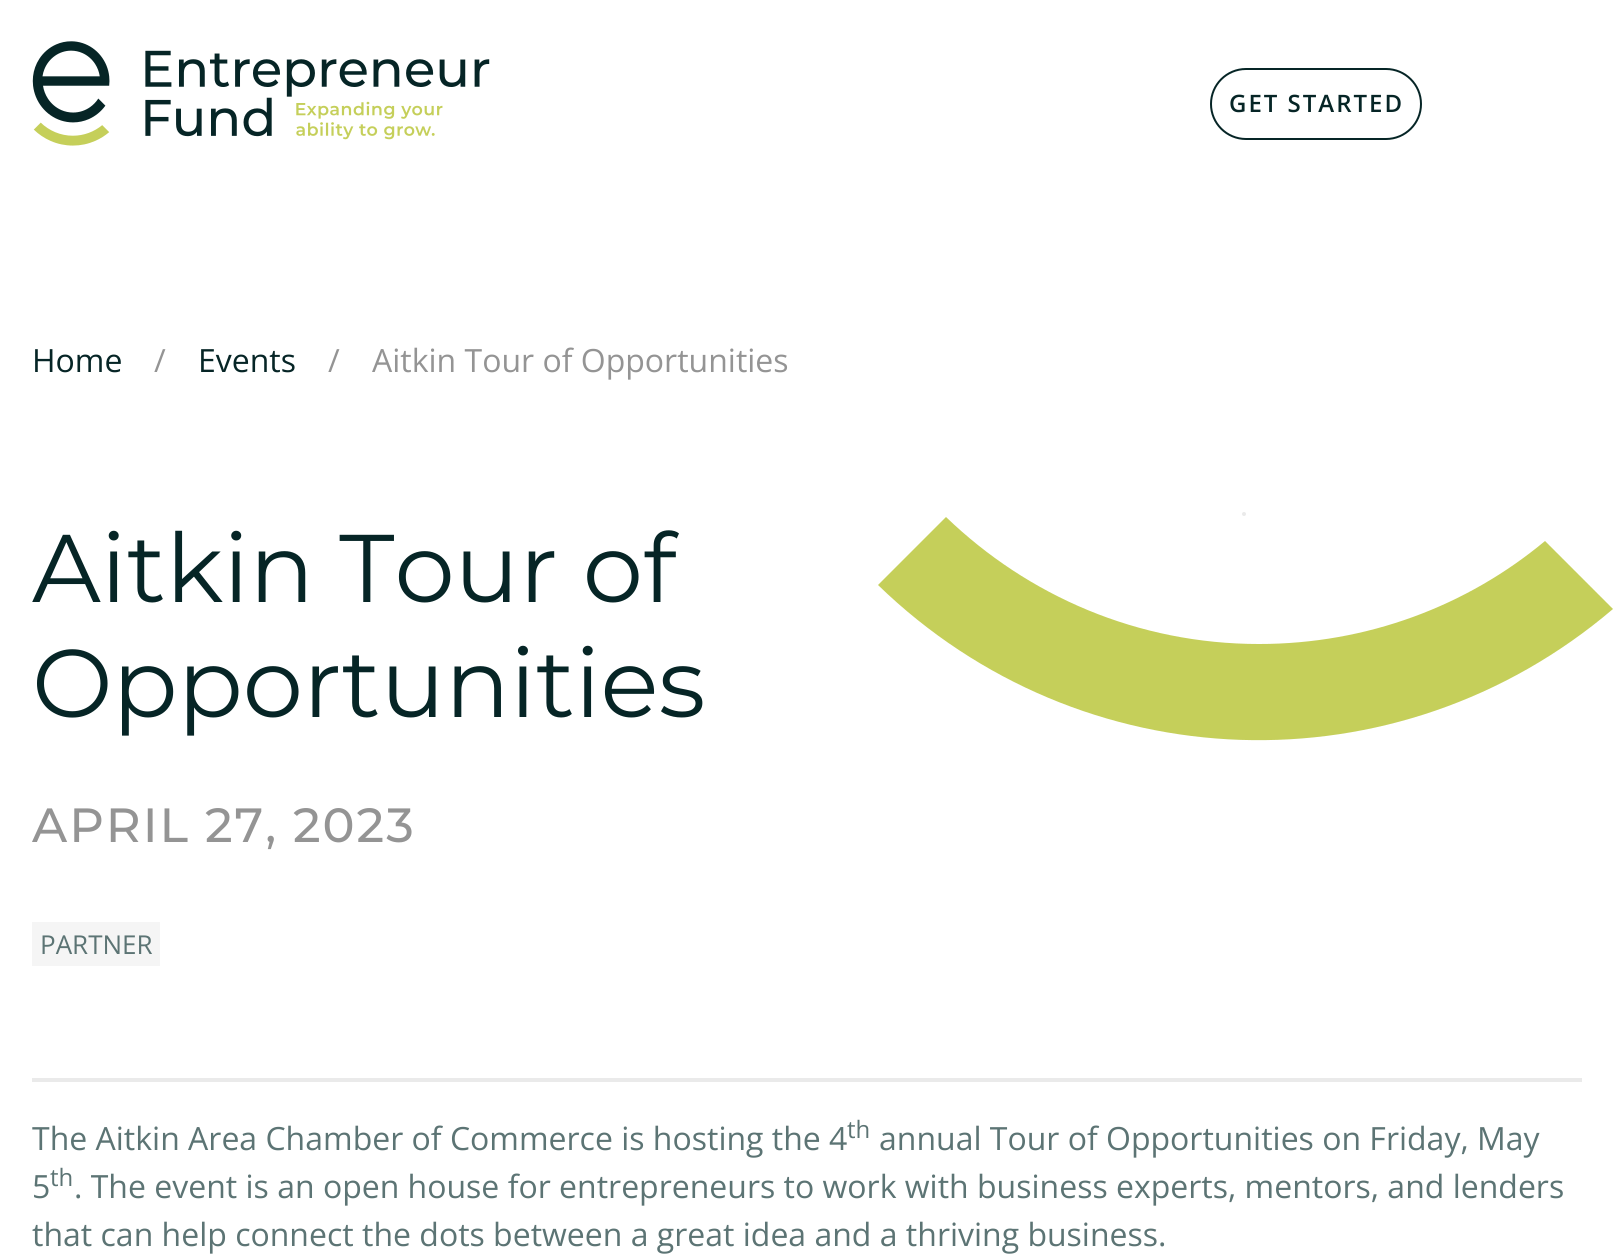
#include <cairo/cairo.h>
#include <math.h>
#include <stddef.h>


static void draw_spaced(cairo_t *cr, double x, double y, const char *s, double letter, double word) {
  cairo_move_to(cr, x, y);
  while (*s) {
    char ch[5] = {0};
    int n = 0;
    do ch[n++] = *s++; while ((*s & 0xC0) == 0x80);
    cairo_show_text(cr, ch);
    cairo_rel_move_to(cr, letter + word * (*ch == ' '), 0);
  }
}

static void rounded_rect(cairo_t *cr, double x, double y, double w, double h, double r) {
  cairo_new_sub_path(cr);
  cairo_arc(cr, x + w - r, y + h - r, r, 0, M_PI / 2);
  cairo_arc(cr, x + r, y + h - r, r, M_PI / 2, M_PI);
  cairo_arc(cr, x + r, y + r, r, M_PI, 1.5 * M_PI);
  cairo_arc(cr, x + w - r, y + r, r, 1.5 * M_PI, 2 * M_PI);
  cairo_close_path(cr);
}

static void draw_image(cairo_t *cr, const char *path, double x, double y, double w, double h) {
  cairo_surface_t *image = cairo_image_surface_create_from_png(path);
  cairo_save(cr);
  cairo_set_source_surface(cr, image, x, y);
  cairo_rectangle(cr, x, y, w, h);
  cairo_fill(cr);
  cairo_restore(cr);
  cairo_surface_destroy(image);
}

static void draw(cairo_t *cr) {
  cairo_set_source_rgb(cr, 1, 1, 1);
  cairo_paint(cr);
  draw_image(cr, "images/1.png", 32, 41, 458, 105);
  rounded_rect(cr, 1211, 69, 210, 70, 35);
  cairo_set_source_rgb(cr, 6 / 255.0, 37 / 255.0, 38 / 255.0);
  cairo_stroke(cr);
  cairo_set_source_rgb(cr, 245 / 255.0, 245 / 255.0, 245 / 255.0);
  cairo_rectangle(cr, 32, 922, 128, 44);
  cairo_fill(cr);
  cairo_set_source_rgb(cr, 234 / 255.0, 234 / 255.0, 234 / 255.0);
  cairo_arc(cr, 1244, 514, 2, 0, 2 * M_PI);
  cairo_fill(cr);
  cairo_set_source_rgb(cr, 197 / 255.0, 207 / 255.0, 90 / 255.0);
  cairo_new_path(cr);
  cairo_move_to(cr, 1259, 644);
  cairo_curve_to(cr, 1138, 644, 1028, 596, 946, 517);
  cairo_line_to(cr, 878, 585);
  cairo_curve_to(cr, 1081, 782, 1397, 793, 1613, 609);
  cairo_line_to(cr, 1545, 541);
  cairo_curve_to(cr, 1467, 606, 1367, 644, 1259, 644);
  cairo_close_path(cr);
  cairo_fill(cr);
  cairo_set_source_rgb(cr, 234 / 255.0, 234 / 255.0, 234 / 255.0);
  cairo_rectangle(cr, 32, 1078, 1550, 4);
  cairo_fill(cr);
  cairo_select_font_face(cr, "Open Sans SemiBold", CAIRO_FONT_SLANT_NORMAL, CAIRO_FONT_WEIGHT_NORMAL);
  cairo_set_font_size(cr, 24);
  cairo_set_source_rgb(cr, 6 / 255.0, 37 / 255.0, 38 / 255.0);
  draw_spaced(cr, 1229, 112, "GET STARTED", 2, 0);
  cairo_select_font_face(cr, "Open Sans", CAIRO_FONT_SLANT_NORMAL, CAIRO_FONT_WEIGHT_NORMAL);
  cairo_set_font_size(cr, 32);
  cairo_move_to(cr, 32, 372);
  cairo_show_text(cr, "Home");
  cairo_set_source_rgb(cr, 148 / 255.0, 148 / 255.0, 148 / 255.0);
  cairo_move_to(cr, 154, 372);
  cairo_show_text(cr, "/");
  cairo_set_source_rgb(cr, 6 / 255.0, 37 / 255.0, 38 / 255.0);
  cairo_move_to(cr, 198, 372);
  cairo_show_text(cr, "Events");
  cairo_set_source_rgb(cr, 148 / 255.0, 148 / 255.0, 148 / 255.0);
  cairo_move_to(cr, 328, 372);
  cairo_show_text(cr, "/");
  cairo_move_to(cr, 372, 372);
  cairo_show_text(cr, "Aitkin Tour of Opportunities");
  cairo_select_font_face(cr, "Montserrat", CAIRO_FONT_SLANT_NORMAL, CAIRO_FONT_WEIGHT_NORMAL);
  cairo_set_font_size(cr, 96);
  cairo_set_source_rgb(cr, 6 / 255.0, 37 / 255.0, 38 / 255.0);
  cairo_move_to(cr, 32, 602);
  cairo_show_text(cr, "Aitkin Tour of");
  cairo_move_to(cr, 32, 717);
  cairo_show_text(cr, "Opportunities");
  cairo_select_font_face(cr, "Montserrat Medium", CAIRO_FONT_SLANT_NORMAL, CAIRO_FONT_WEIGHT_NORMAL);
  cairo_set_font_size(cr, 48);
  cairo_set_source_rgb(cr, 148 / 255.0, 148 / 255.0, 148 / 255.0);
  draw_spaced(cr, 32, 842, "APRIL 27, 2023", 2, 0);
  cairo_select_font_face(cr, "Open Sans", CAIRO_FONT_SLANT_NORMAL, CAIRO_FONT_WEIGHT_NORMAL);
  cairo_set_font_size(cr, 26);
  cairo_set_source_rgb(cr, 92 / 255.0, 116 / 255.0, 116 / 255.0);
  cairo_move_to(cr, 40, 954);
  cairo_show_text(cr, "PARTNER");
  cairo_set_font_size(cr, 32);
  cairo_move_to(cr, 32, 1150);
  cairo_show_text(cr, "The Aitkin Area Chamber of Commerce is hosting the 4");
  cairo_set_font_size(cr, 24);
  cairo_move_to(cr, 847, 1138);
  cairo_show_text(cr, "th");
  cairo_set_font_size(cr, 32);
  cairo_move_to(cr, 879, 1150);
  cairo_show_text(cr, "annual Tour of Opportunities on Friday, May");
  cairo_move_to(cr, 32, 1198);
  cairo_show_text(cr, "5");
  cairo_set_font_size(cr, 24);
  cairo_move_to(cr, 50, 1186);
  cairo_show_text(cr, "th");
  cairo_set_font_size(cr, 32);
  cairo_move_to(cr, 74, 1198);
  cairo_show_text(cr, ". The event is an open house for entrepreneurs to work with business experts, mentors, and lenders");
  cairo_move_to(cr, 32, 1246);
  cairo_show_text(cr, "that can help connect the dots between a great idea and a thriving business.");
}

int main(void) {
  cairo_surface_t *surface = cairo_image_surface_create(CAIRO_FORMAT_RGB24, 1613, 1258);
  cairo_t *cr = cairo_create(surface);
  cairo_font_options_t *options = cairo_font_options_create();
  cairo_font_options_set_hint_metrics(options, CAIRO_HINT_METRICS_OFF);
  cairo_font_options_set_hint_style(options, CAIRO_HINT_STYLE_NONE);
  cairo_set_font_options(cr, options);
  cairo_set_miter_limit(cr, 4);
  draw(cr);
  cairo_surface_write_to_png(surface, "out.png");
  cairo_font_options_destroy(options);
  cairo_destroy(cr);
  cairo_surface_destroy(surface);
  return 0;
}
